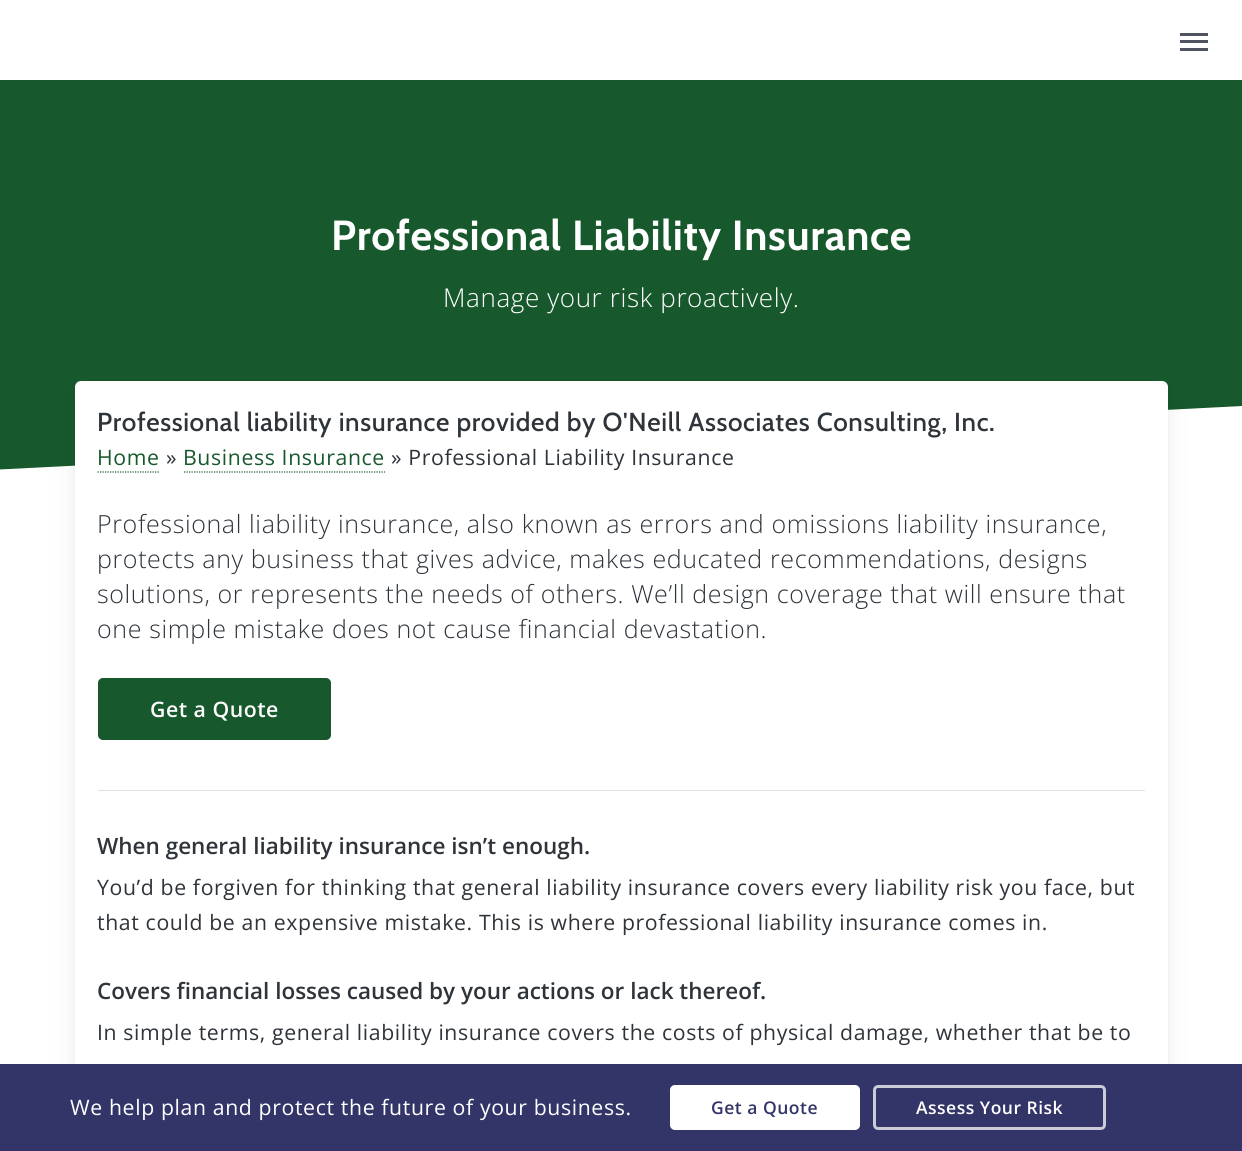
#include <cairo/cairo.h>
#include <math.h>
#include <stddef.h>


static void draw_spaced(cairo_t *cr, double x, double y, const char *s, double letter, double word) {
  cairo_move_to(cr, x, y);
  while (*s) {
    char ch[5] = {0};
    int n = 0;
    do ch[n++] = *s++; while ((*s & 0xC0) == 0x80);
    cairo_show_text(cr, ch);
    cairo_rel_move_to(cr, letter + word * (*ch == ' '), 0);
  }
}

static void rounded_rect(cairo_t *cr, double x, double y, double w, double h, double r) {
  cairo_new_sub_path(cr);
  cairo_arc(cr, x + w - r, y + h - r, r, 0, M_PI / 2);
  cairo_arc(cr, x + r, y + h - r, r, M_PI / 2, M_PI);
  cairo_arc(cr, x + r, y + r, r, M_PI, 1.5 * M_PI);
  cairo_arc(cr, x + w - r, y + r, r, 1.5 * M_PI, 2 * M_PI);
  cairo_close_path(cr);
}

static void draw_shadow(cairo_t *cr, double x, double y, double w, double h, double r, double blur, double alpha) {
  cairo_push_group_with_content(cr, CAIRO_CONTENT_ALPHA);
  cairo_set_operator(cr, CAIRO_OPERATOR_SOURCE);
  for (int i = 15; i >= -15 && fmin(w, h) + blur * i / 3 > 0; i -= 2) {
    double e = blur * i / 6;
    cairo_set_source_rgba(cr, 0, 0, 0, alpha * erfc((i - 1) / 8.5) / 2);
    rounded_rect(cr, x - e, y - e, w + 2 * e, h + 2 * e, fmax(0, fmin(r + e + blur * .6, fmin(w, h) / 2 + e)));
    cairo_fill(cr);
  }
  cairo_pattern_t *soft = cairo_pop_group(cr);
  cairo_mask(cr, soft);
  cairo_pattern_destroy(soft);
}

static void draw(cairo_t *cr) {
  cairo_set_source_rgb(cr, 1, 1, 1);
  cairo_paint(cr);
  cairo_set_source_rgb(cr, 78 / 255.0, 85 / 255.0, 97 / 255.0);
  cairo_rectangle(cr, 1180, 33, 28, 3);
  cairo_fill(cr);
  cairo_rectangle(cr, 1180, 48, 28, 3);
  cairo_fill(cr);
  cairo_rectangle(cr, 1180, 40, 28, 3);
  cairo_fill(cr);
  cairo_set_source_rgb(cr, 23 / 255.0, 89 / 255.0, 44 / 255.0);
  cairo_rectangle(cr, 0, 80, 1242, 390);
  cairo_fill(cr);
  cairo_set_source_rgb(cr, 1, 1, 1);
  cairo_new_path(cr);
  cairo_move_to(cr, 1242, 472);
  cairo_line_to(cr, 1242, 406);
  cairo_line_to(cr, -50, 472);
  cairo_close_path(cr);
  cairo_fill(cr);
  cairo_set_source_rgb(cr, 0, 0, 0);
  draw_shadow(cr, 75, 396, 1093, 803, 6, 14, 0.06);
  draw_shadow(cr, 75, 384, 1093, 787, 6, 4.5, 0.05);
  cairo_set_source_rgb(cr, 1, 1, 1);
  rounded_rect(cr, 75, 381, 1093, 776, 6);
  cairo_fill(cr);
  cairo_new_path(cr);
  cairo_move_to(cr, 97.5, 472);
  cairo_line_to(cr, 160, 472);
  cairo_set_source_rgb(cr, 23 / 255.0, 89 / 255.0, 44 / 255.0);
  cairo_set_line_width(cr, 1.2);
  cairo_set_dash(cr, (double[]){1.25, 1.25}, 2, 0);
  cairo_stroke(cr);
  cairo_new_path(cr);
  cairo_move_to(cr, 184, 472);
  cairo_line_to(cr, 385, 472);
  cairo_stroke(cr);
  rounded_rect(cr, 98, 678, 233, 62, 5);
  cairo_fill(cr);
  cairo_set_source_rgb(cr, 224 / 255.0, 224 / 255.0, 224 / 255.0);
  cairo_rectangle(cr, 98, 790, 1047, 1);
  cairo_fill(cr);
  cairo_set_source_rgb(cr, 51 / 255.0, 52 / 255.0, 104 / 255.0);
  cairo_rectangle(cr, 0, 1064, 1242, 87);
  cairo_fill(cr);
  cairo_set_source_rgb(cr, 1, 1, 1);
  rounded_rect(cr, 670, 1085, 190, 45, 5);
  cairo_fill(cr);
  rounded_rect(cr, 874.5, 1086.5, 230, 42, 3.5);
  cairo_set_source_rgb(cr, 204 / 255.0, 204 / 255.0, 217 / 255.0);
  cairo_set_line_width(cr, 3);
  cairo_set_dash(cr, NULL, 0, 0);
  cairo_stroke(cr);
  cairo_select_font_face(cr, "Cabin", CAIRO_FONT_SLANT_NORMAL, CAIRO_FONT_WEIGHT_BOLD);
  cairo_set_font_size(cr, 42);
  cairo_set_source_rgb(cr, 1, 1, 1);
  draw_spaced(cr, 331, 250, "Professional Liability Insurance", 0.62, 0);
  cairo_select_font_face(cr, "Open Sans Light", CAIRO_FONT_SLANT_NORMAL, CAIRO_FONT_WEIGHT_NORMAL);
  cairo_set_font_size(cr, 26);
  draw_spaced(cr, 443, 307, "Manage your risk proactively.", 0.62, 0);
  cairo_select_font_face(cr, "Cabin Medium", CAIRO_FONT_SLANT_NORMAL, CAIRO_FONT_WEIGHT_NORMAL);
  cairo_set_source_rgb(cr, 46 / 255.0, 52 / 255.0, 58 / 255.0);
  draw_spaced(cr, 97, 431, "Professional liability insurance provided by O'Neill Associates Consulting, Inc.", 0.62, 0);
  cairo_select_font_face(cr, "Open Sans", CAIRO_FONT_SLANT_NORMAL, CAIRO_FONT_WEIGHT_NORMAL);
  cairo_set_font_size(cr, 21.25);
  cairo_set_source_rgb(cr, 23 / 255.0, 89 / 255.0, 44 / 255.0);
  draw_spaced(cr, 97, 465, "Home", 0.62, 0);
  cairo_set_source_rgb(cr, 46 / 255.0, 52 / 255.0, 58 / 255.0);
  draw_spaced(cr, 166, 465, "»", 0.62, 0);
  cairo_set_source_rgb(cr, 23 / 255.0, 89 / 255.0, 44 / 255.0);
  draw_spaced(cr, 183, 465, "Business Insurance", 0.62, 0);
  cairo_set_source_rgb(cr, 46 / 255.0, 52 / 255.0, 58 / 255.0);
  draw_spaced(cr, 391, 465, "» Professional Liability Insurance", 0.62, 0);
  cairo_select_font_face(cr, "Open Sans Light", CAIRO_FONT_SLANT_NORMAL, CAIRO_FONT_WEIGHT_NORMAL);
  cairo_set_font_size(cr, 25);
  draw_spaced(cr, 97, 533, "Professional liability insurance, also known as errors and omissions liability insurance,", 0.62, 0);
  draw_spaced(cr, 97, 568, "protects any business that gives advice, makes educated recommendations, designs", 0.62, 0);
  draw_spaced(cr, 97, 603, "solutions, or represents the needs of others. We’ll design coverage that will ensure that", 0.62, 0);
  draw_spaced(cr, 97, 638, "one simple mistake does not cause financial devastation.", 0.62, 0);
  cairo_select_font_face(cr, "Open Sans SemiBold", CAIRO_FONT_SLANT_NORMAL, CAIRO_FONT_WEIGHT_NORMAL);
  cairo_set_font_size(cr, 21.25);
  cairo_set_source_rgb(cr, 1, 1, 1);
  draw_spaced(cr, 150, 717, "Get a Quote", 0.5, 0);
  cairo_set_font_size(cr, 22.5);
  cairo_set_source_rgb(cr, 46 / 255.0, 52 / 255.0, 58 / 255.0);
  cairo_move_to(cr, 97, 854);
  cairo_show_text(cr, "When general liability insurance isn’t enough.");
  cairo_select_font_face(cr, "Open Sans", CAIRO_FONT_SLANT_NORMAL, CAIRO_FONT_WEIGHT_NORMAL);
  cairo_set_font_size(cr, 21.25);
  draw_spaced(cr, 97, 895, "You’d be forgiven for thinking that general liability insurance covers every liability risk you face, but", 0.62, 0);
  draw_spaced(cr, 97, 930, "that could be an expensive mistake. This is where professional liability insurance comes in.", 0.62, 0);
  cairo_select_font_face(cr, "Open Sans SemiBold", CAIRO_FONT_SLANT_NORMAL, CAIRO_FONT_WEIGHT_NORMAL);
  cairo_set_font_size(cr, 22.5);
  cairo_move_to(cr, 97, 999);
  cairo_show_text(cr, "Covers financial losses caused by your actions or lack thereof.");
  cairo_select_font_face(cr, "Open Sans", CAIRO_FONT_SLANT_NORMAL, CAIRO_FONT_WEIGHT_NORMAL);
  cairo_set_font_size(cr, 21.25);
  draw_spaced(cr, 97, 1040, "In simple terms, general liability insurance covers the costs of physical damage, whether that be to", 0.62, 0);
  cairo_set_source_rgb(cr, 1, 1, 1);
  draw_spaced(cr, 70, 1115, "We help plan and protect the future of your business.", 0.62, 0);
  cairo_select_font_face(cr, "Open Sans SemiBold", CAIRO_FONT_SLANT_NORMAL, CAIRO_FONT_WEIGHT_NORMAL);
  cairo_set_font_size(cr, 17.5);
  cairo_set_source_rgb(cr, 51 / 255.0, 52 / 255.0, 104 / 255.0);
  draw_spaced(cr, 711, 1114, "Get a Quote", 0.5, 0);
  cairo_set_source_rgb(cr, 1, 1, 1);
  draw_spaced(cr, 916, 1114, "Assess Your Risk", 0.5, 0);
}

int main(void) {
  cairo_surface_t *surface = cairo_image_surface_create(CAIRO_FORMAT_RGB24, 1242, 1151);
  cairo_t *cr = cairo_create(surface);
  cairo_font_options_t *options = cairo_font_options_create();
  cairo_font_options_set_hint_metrics(options, CAIRO_HINT_METRICS_OFF);
  cairo_font_options_set_hint_style(options, CAIRO_HINT_STYLE_NONE);
  cairo_set_font_options(cr, options);
  cairo_set_miter_limit(cr, 4);
  draw(cr);
  cairo_surface_write_to_png(surface, "out.png");
  cairo_font_options_destroy(options);
  cairo_destroy(cr);
  cairo_surface_destroy(surface);
  return 0;
}
